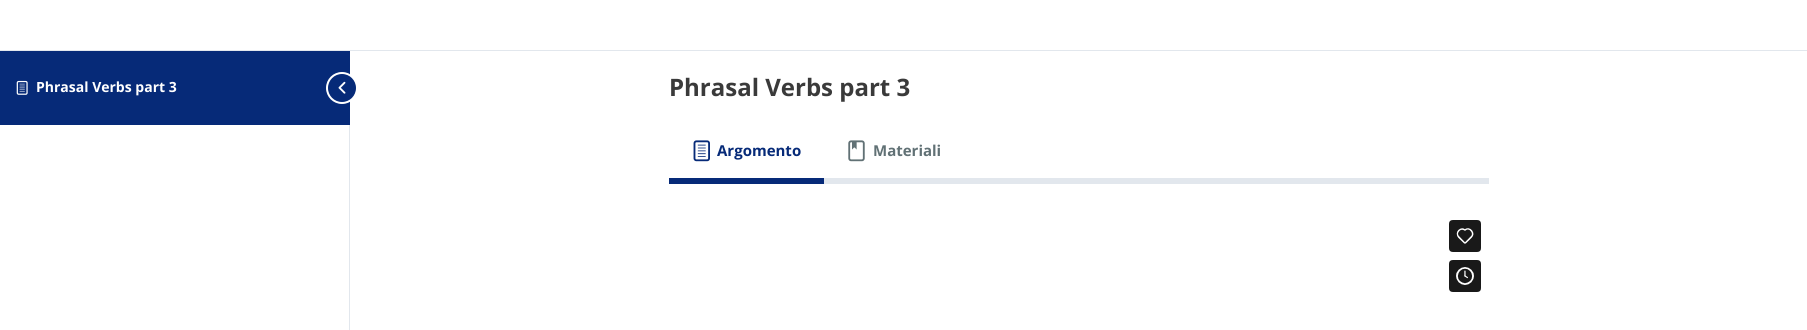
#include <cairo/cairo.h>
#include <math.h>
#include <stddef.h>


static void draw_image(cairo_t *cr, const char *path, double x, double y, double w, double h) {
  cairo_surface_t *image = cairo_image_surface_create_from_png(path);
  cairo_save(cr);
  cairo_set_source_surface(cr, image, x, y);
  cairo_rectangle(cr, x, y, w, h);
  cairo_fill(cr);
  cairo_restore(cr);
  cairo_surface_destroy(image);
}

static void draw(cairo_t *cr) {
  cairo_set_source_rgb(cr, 1, 1, 1);
  cairo_paint(cr);
  cairo_set_source_rgb(cr, 226 / 255.0, 231 / 255.0, 237 / 255.0);
  cairo_rectangle(cr, 349, 125, 1, 205);
  cairo_fill(cr);
  cairo_set_source_rgb(cr, 6 / 255.0, 42 / 255.0, 120 / 255.0);
  cairo_rectangle(cr, 0, 51, 350, 74);
  cairo_fill(cr);
  draw_image(cr, "images/1.png", 16, 80, 12, 15);
  cairo_arc(cr, 342, 88, 15, 0, 2 * M_PI);
  cairo_fill_preserve(cr);
  cairo_set_source_rgb(cr, 1, 1, 1);
  cairo_stroke(cr);
  draw_image(cr, "images/2.png", 338, 81, 8, 13);
  cairo_set_source_rgb(cr, 226 / 255.0, 231 / 255.0, 237 / 255.0);
  cairo_rectangle(cr, 0, 50, 1807, 1);
  cairo_fill(cr);
  draw_image(cr, "images/3.png", 693, 140, 17, 22);
  cairo_set_source_rgb(cr, 6 / 255.0, 42 / 255.0, 120 / 255.0);
  cairo_rectangle(cr, 669, 178, 155, 6);
  cairo_fill(cr);
  draw_image(cr, "images/4.png", 848, 140, 17, 22);
  cairo_set_source_rgb(cr, 226 / 255.0, 231 / 255.0, 237 / 255.0);
  cairo_rectangle(cr, 824, 178, 665, 6);
  cairo_fill(cr);
  draw_image(cr, "images/5.png", 1449, 220, 32, 72);
  cairo_select_font_face(cr, "Open Sans", CAIRO_FONT_SLANT_NORMAL, CAIRO_FONT_WEIGHT_BOLD);
  cairo_set_font_size(cr, 14);
  cairo_set_source_rgb(cr, 1, 1, 1);
  cairo_move_to(cr, 36, 92);
  cairo_show_text(cr, "Phrasal Verbs part 3");
  cairo_set_font_size(cr, 24);
  cairo_set_source_rgb(cr, 58 / 255.0, 58 / 255.0, 58 / 255.0);
  cairo_move_to(cr, 669, 96);
  cairo_show_text(cr, "Phrasal Verbs part 3");
  cairo_set_font_size(cr, 15);
  cairo_set_source_rgb(cr, 6 / 255.0, 42 / 255.0, 120 / 255.0);
  cairo_move_to(cr, 717, 156);
  cairo_show_text(cr, "Argomento");
  cairo_set_source_rgb(cr, 97 / 255.0, 113 / 255.0, 117 / 255.0);
  cairo_move_to(cr, 873, 156);
  cairo_show_text(cr, "Materiali");
}

int main(void) {
  cairo_surface_t *surface = cairo_image_surface_create(CAIRO_FORMAT_RGB24, 1807, 330);
  cairo_t *cr = cairo_create(surface);
  cairo_font_options_t *options = cairo_font_options_create();
  cairo_font_options_set_hint_metrics(options, CAIRO_HINT_METRICS_OFF);
  cairo_font_options_set_hint_style(options, CAIRO_HINT_STYLE_NONE);
  cairo_set_font_options(cr, options);
  cairo_set_miter_limit(cr, 4);
  draw(cr);
  cairo_surface_write_to_png(surface, "out.png");
  cairo_font_options_destroy(options);
  cairo_destroy(cr);
  cairo_surface_destroy(surface);
  return 0;
}
